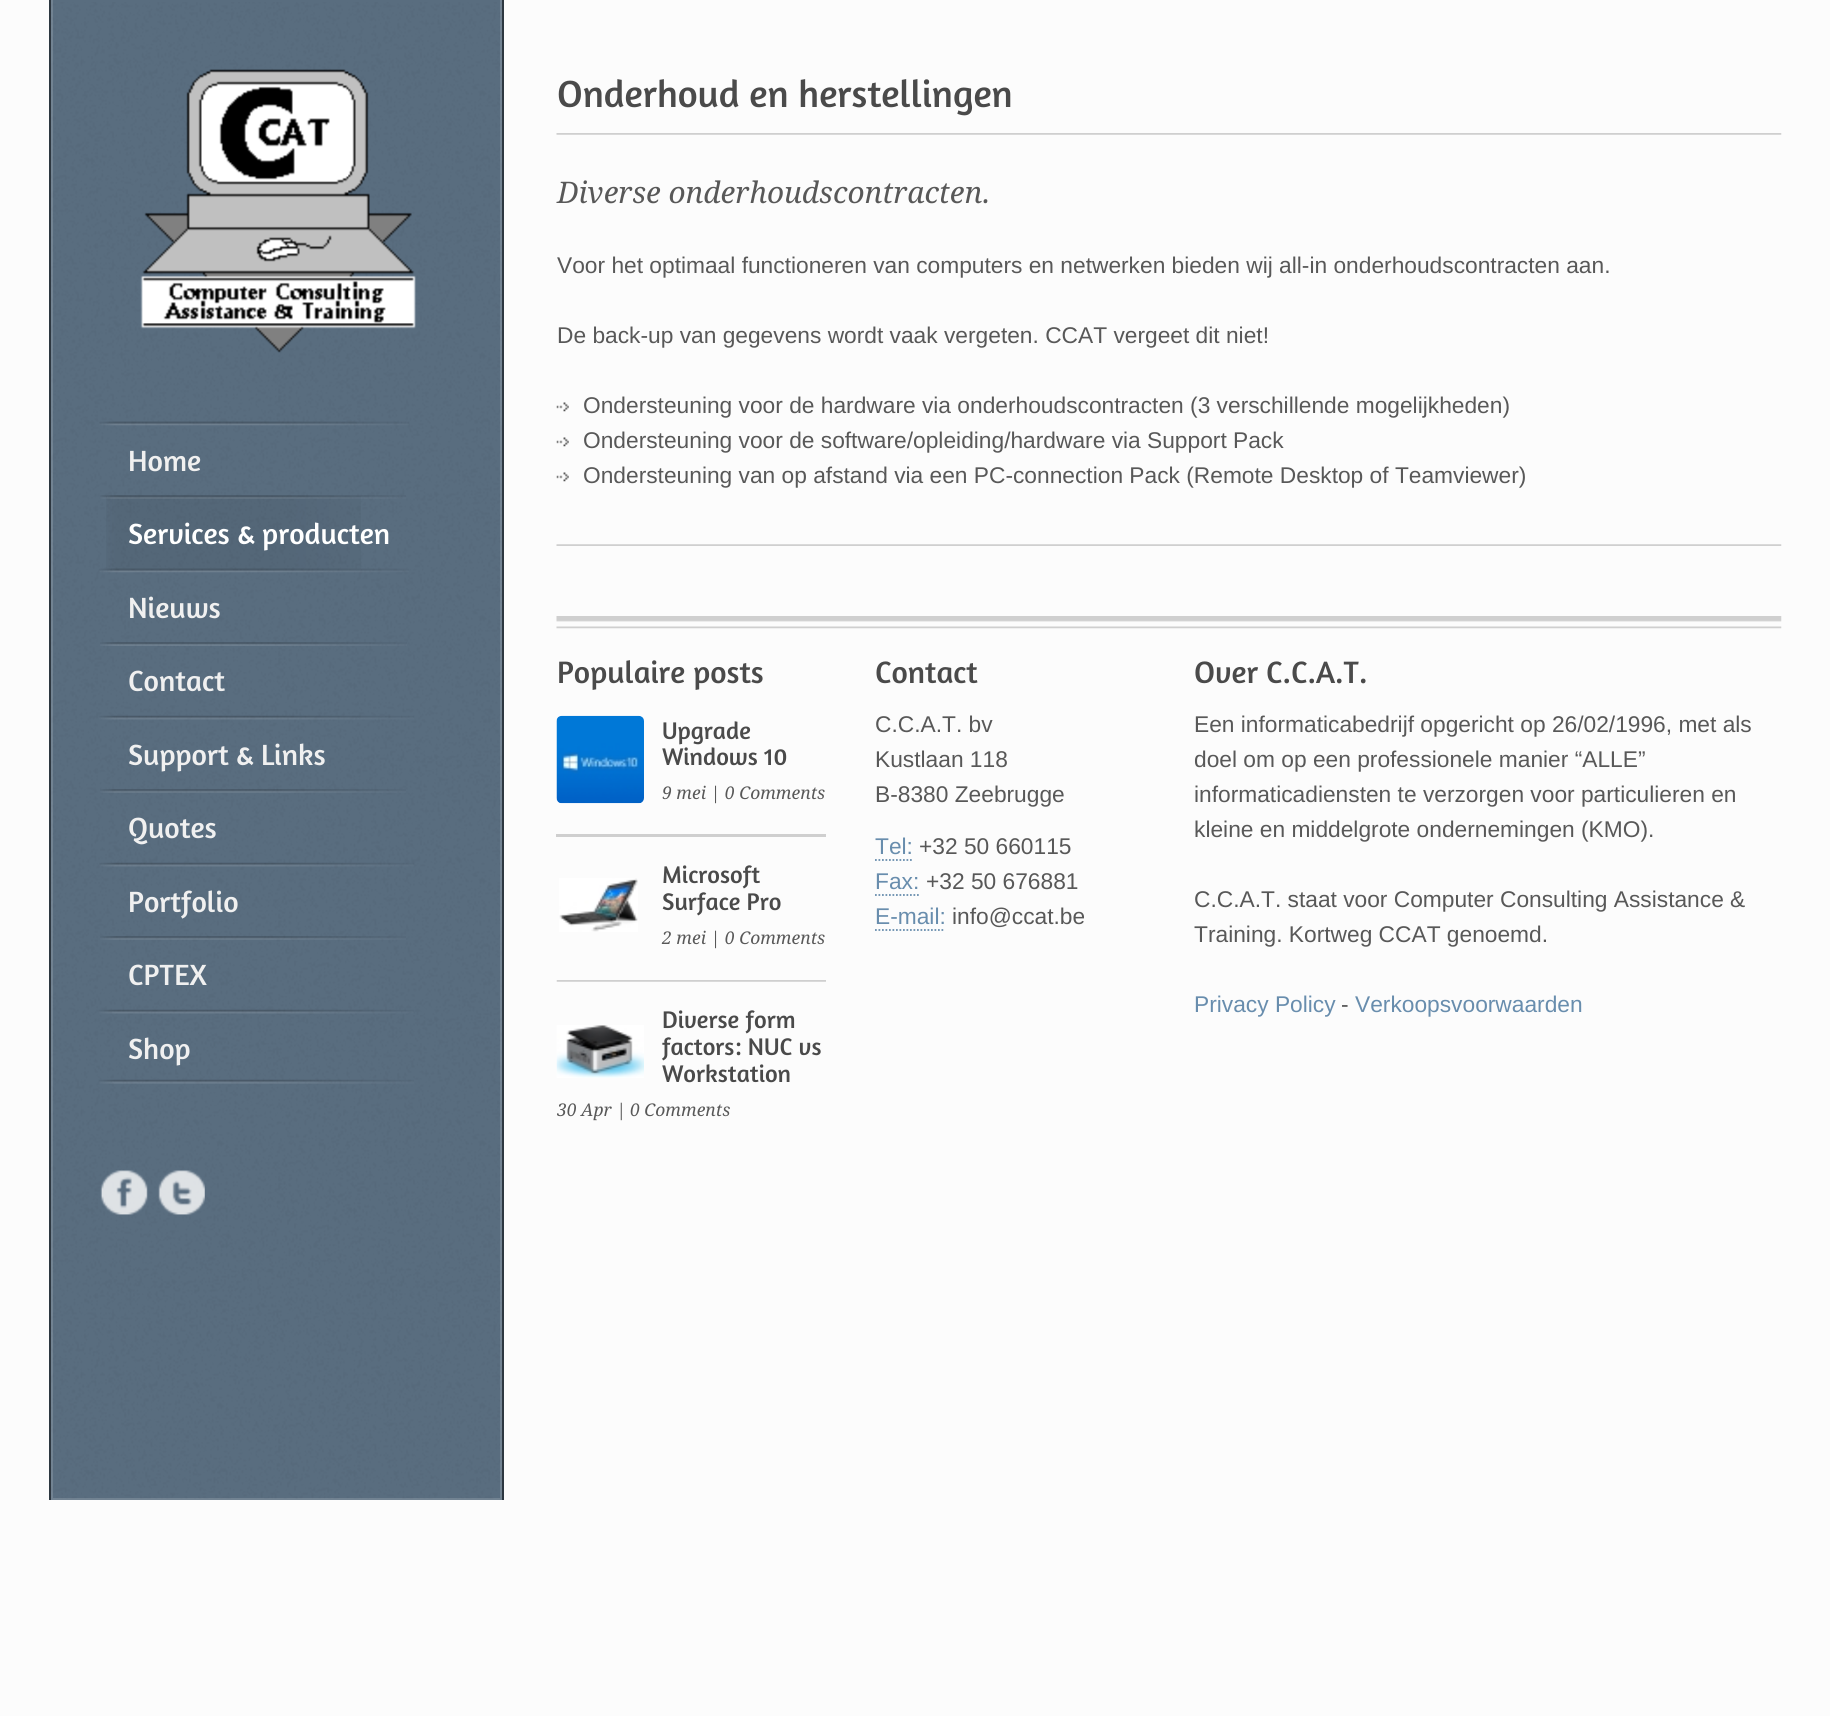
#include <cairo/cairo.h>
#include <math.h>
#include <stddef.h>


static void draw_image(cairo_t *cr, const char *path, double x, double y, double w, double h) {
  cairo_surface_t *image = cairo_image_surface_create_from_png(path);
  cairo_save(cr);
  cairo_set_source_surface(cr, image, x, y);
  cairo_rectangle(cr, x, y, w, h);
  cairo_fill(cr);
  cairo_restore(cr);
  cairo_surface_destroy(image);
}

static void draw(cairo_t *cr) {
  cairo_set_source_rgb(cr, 252 / 255.0, 252 / 255.0, 252 / 255.0);
  cairo_paint(cr);
  cairo_set_source_rgb(cr, 89 / 255.0, 109 / 255.0, 127 / 255.0);
  cairo_rectangle(cr, 51, 0, 451, 1500);
  cairo_fill(cr);
  draw_image(cr, "images/1.png", 51, 2, 451, 1497);
  cairo_rectangle(cr, 52, -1, 449, 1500);
  cairo_set_source_rgba(cr, 1, 1, 1, 0.15);
  cairo_stroke(cr);
  cairo_set_source_rgb(cr, 45 / 255.0, 55 / 255.0, 64 / 255.0);
  cairo_rectangle(cr, 502, 0, 2, 1500);
  cairo_fill(cr);
  cairo_rectangle(cr, 49, 0, 2, 1500);
  cairo_fill(cr);
  draw_image(cr, "images/2.png", 140, 69, 276, 284);
  draw_image(cr, "images/3.png", 99, 1079, 315, 5);
  draw_image(cr, "images/4.png", 99, 421, 310, 5);
  draw_image(cr, "images/5.png", 100, 495, 306, 4);
  draw_image(cr, "images/7.png", 99, 568, 310, 5);
  draw_image(cr, "images/6.png", 106, 496, 255, 73);
  draw_image(cr, "images/8.png", 100, 642, 307, 4);
  draw_image(cr, "images/9.png", 99, 715, 315, 5);
  draw_image(cr, "images/10.png", 100, 789, 306, 4);
  draw_image(cr, "images/11.png", 99, 862, 315, 5);
  draw_image(cr, "images/12.png", 100, 936, 306, 4);
  draw_image(cr, "images/13.png", 99, 1009, 315, 5);
  draw_image(cr, "images/14.png", 100, 1170, 48, 45);
  draw_image(cr, "images/15.png", 158, 1170, 47, 45);
  draw_image(cr, "images/16.png", 556, 133, 1226, 2);
  draw_image(cr, "images/17.png", 556, 544, 1226, 2);
  draw_image(cr, "images/18.png", 556, 402, 13, 10);
  draw_image(cr, "images/18.png", 556, 437, 13, 10);
  draw_image(cr, "images/18.png", 556, 472, 13, 10);
  draw_image(cr, "images/19.png", 556, 616, 1226, 13);
  draw_image(cr, "images/20.png", 556, 715, 88, 89);
  cairo_set_source_rgb(cr, 207 / 255.0, 207 / 255.0, 207 / 255.0);
  cairo_rectangle(cr, 556, 834, 270, 3);
  cairo_fill(cr);
  draw_image(cr, "images/21.png", 559, 878, 79, 54);
  draw_image(cr, "images/22.png", 556, 980, 270, 2);
  draw_image(cr, "images/23.png", 556, 1025, 88, 53);
  cairo_new_path(cr);
  cairo_move_to(cr, 875, 860);
  cairo_line_to(cr, 913.5, 860);
  cairo_set_source_rgb(cr, 104 / 255.0, 141 / 255.0, 173 / 255.0);
  cairo_set_line_width(cr, 1.8);
  cairo_set_dash(cr, (double[]){1.75, 1.75}, 2, 0);
  cairo_stroke(cr);
  cairo_new_path(cr);
  cairo_move_to(cr, 875, 895);
  cairo_line_to(cr, 919, 895);
  cairo_stroke(cr);
  cairo_new_path(cr);
  cairo_move_to(cr, 875, 930);
  cairo_line_to(cr, 945, 930);
  cairo_stroke(cr);
  cairo_select_font_face(cr, "Amaranth", CAIRO_FONT_SLANT_NORMAL, CAIRO_FONT_WEIGHT_NORMAL);
  cairo_set_font_size(cr, 29.75);
  cairo_set_source_rgb(cr, 240 / 255.0, 240 / 255.0, 240 / 255.0);
  cairo_move_to(cr, 128, 471);
  cairo_show_text(cr, "Home");
  cairo_set_source_rgb(cr, 1, 1, 1);
  cairo_move_to(cr, 128, 544);
  cairo_show_text(cr, "Services & producten");
  cairo_set_source_rgb(cr, 240 / 255.0, 240 / 255.0, 240 / 255.0);
  cairo_move_to(cr, 128, 618);
  cairo_show_text(cr, "Nieuws");
  cairo_move_to(cr, 128, 691);
  cairo_show_text(cr, "Contact");
  cairo_move_to(cr, 128, 765);
  cairo_show_text(cr, "Support & Links");
  cairo_move_to(cr, 128, 838);
  cairo_show_text(cr, "Quotes");
  cairo_move_to(cr, 128, 912);
  cairo_show_text(cr, "Portfolio");
  cairo_move_to(cr, 128, 985);
  cairo_show_text(cr, "CPTEX");
  cairo_move_to(cr, 128, 1059);
  cairo_show_text(cr, "Shop");
  cairo_set_font_size(cr, 38.5);
  cairo_set_source_rgb(cr, 74 / 255.0, 74 / 255.0, 74 / 255.0);
  cairo_move_to(cr, 557, 107);
  cairo_show_text(cr, "Onderhoud en herstellingen");
  cairo_select_font_face(cr, "Droid Serif", CAIRO_FONT_SLANT_ITALIC, CAIRO_FONT_WEIGHT_NORMAL);
  cairo_set_font_size(cr, 29.75);
  cairo_set_source_rgb(cr, 88 / 255.0, 88 / 255.0, 88 / 255.0);
  cairo_move_to(cr, 557, 203);
  cairo_show_text(cr, "Diverse onderhoudscontracten.");
  cairo_select_font_face(cr, "Liberation Sans", CAIRO_FONT_SLANT_NORMAL, CAIRO_FONT_WEIGHT_NORMAL);
  cairo_set_font_size(cr, 22.75);
  cairo_move_to(cr, 557, 273);
  cairo_show_text(cr, "Voor het optimaal functioneren van computers en netwerken bieden wij all-in onderhoudscontracten aan.");
  cairo_move_to(cr, 557, 343);
  cairo_show_text(cr, "De back-up van gegevens wordt vaak vergeten. CCAT vergeet dit niet!");
  cairo_move_to(cr, 583, 413);
  cairo_show_text(cr, "Ondersteuning voor de hardware via onderhoudscontracten (3 verschillende mogelijkheden)");
  cairo_move_to(cr, 583, 448);
  cairo_show_text(cr, "Ondersteuning voor de software/opleiding/hardware via Support Pack");
  cairo_move_to(cr, 583, 483);
  cairo_show_text(cr, "Ondersteuning van op afstand via een PC-connection Pack (Remote Desktop of Teamviewer)");
  cairo_select_font_face(cr, "Amaranth", CAIRO_FONT_SLANT_NORMAL, CAIRO_FONT_WEIGHT_NORMAL);
  cairo_set_font_size(cr, 31.5);
  cairo_set_source_rgb(cr, 74 / 255.0, 74 / 255.0, 74 / 255.0);
  cairo_move_to(cr, 557, 683);
  cairo_show_text(cr, "Populaire posts");
  cairo_set_font_size(cr, 24.5);
  cairo_move_to(cr, 662, 739);
  cairo_show_text(cr, "Upgrade");
  cairo_move_to(cr, 662, 765);
  cairo_show_text(cr, "Windows 10");
  cairo_select_font_face(cr, "Droid Serif", CAIRO_FONT_SLANT_ITALIC, CAIRO_FONT_WEIGHT_NORMAL);
  cairo_set_font_size(cr, 17.5);
  cairo_set_source_rgb(cr, 88 / 255.0, 88 / 255.0, 88 / 255.0);
  cairo_move_to(cr, 662, 799);
  cairo_show_text(cr, "9 mei | 0 Comments");
  cairo_select_font_face(cr, "Amaranth", CAIRO_FONT_SLANT_NORMAL, CAIRO_FONT_WEIGHT_NORMAL);
  cairo_set_font_size(cr, 24.5);
  cairo_set_source_rgb(cr, 74 / 255.0, 74 / 255.0, 74 / 255.0);
  cairo_move_to(cr, 662, 883);
  cairo_show_text(cr, "Microsoft");
  cairo_move_to(cr, 662, 910);
  cairo_show_text(cr, "Surface Pro");
  cairo_select_font_face(cr, "Droid Serif", CAIRO_FONT_SLANT_ITALIC, CAIRO_FONT_WEIGHT_NORMAL);
  cairo_set_font_size(cr, 17.5);
  cairo_set_source_rgb(cr, 88 / 255.0, 88 / 255.0, 88 / 255.0);
  cairo_move_to(cr, 662, 944);
  cairo_show_text(cr, "2 mei | 0 Comments");
  cairo_select_font_face(cr, "Amaranth", CAIRO_FONT_SLANT_NORMAL, CAIRO_FONT_WEIGHT_NORMAL);
  cairo_set_font_size(cr, 24.5);
  cairo_set_source_rgb(cr, 74 / 255.0, 74 / 255.0, 74 / 255.0);
  cairo_move_to(cr, 662, 1028);
  cairo_show_text(cr, "Diverse form");
  cairo_move_to(cr, 662, 1055);
  cairo_show_text(cr, "factors: NUC vs");
  cairo_move_to(cr, 662, 1082);
  cairo_show_text(cr, "Workstation");
  cairo_save(cr);
  cairo_rectangle(cr, 557, 980, 269, 145);
  cairo_clip(cr);
  cairo_select_font_face(cr, "Droid Serif", CAIRO_FONT_SLANT_ITALIC, CAIRO_FONT_WEIGHT_NORMAL);
  cairo_set_font_size(cr, 17.5);
  cairo_set_source_rgb(cr, 88 / 255.0, 88 / 255.0, 88 / 255.0);
  cairo_move_to(cr, 557, 1116);
  cairo_show_text(cr, "30 Apr |");
  cairo_restore(cr);
  cairo_select_font_face(cr, "Droid Serif", CAIRO_FONT_SLANT_ITALIC, CAIRO_FONT_WEIGHT_NORMAL);
  cairo_set_font_size(cr, 17.5);
  cairo_set_source_rgb(cr, 88 / 255.0, 88 / 255.0, 88 / 255.0);
  cairo_move_to(cr, 630, 1116);
  cairo_show_text(cr, "0 Comments");
  cairo_select_font_face(cr, "Amaranth", CAIRO_FONT_SLANT_NORMAL, CAIRO_FONT_WEIGHT_NORMAL);
  cairo_set_font_size(cr, 31.5);
  cairo_set_source_rgb(cr, 74 / 255.0, 74 / 255.0, 74 / 255.0);
  cairo_move_to(cr, 875, 683);
  cairo_show_text(cr, "Contact");
  cairo_select_font_face(cr, "Liberation Sans", CAIRO_FONT_SLANT_NORMAL, CAIRO_FONT_WEIGHT_NORMAL);
  cairo_set_font_size(cr, 22.75);
  cairo_set_source_rgb(cr, 88 / 255.0, 88 / 255.0, 88 / 255.0);
  cairo_move_to(cr, 875, 732);
  cairo_show_text(cr, "C.C.A.T. bv");
  cairo_move_to(cr, 875, 767);
  cairo_show_text(cr, "Kustlaan 118");
  cairo_move_to(cr, 875, 802);
  cairo_show_text(cr, "B-8380 Zeebrugge");
  cairo_set_source_rgb(cr, 104 / 255.0, 141 / 255.0, 173 / 255.0);
  cairo_move_to(cr, 875, 854);
  cairo_show_text(cr, "Tel:");
  cairo_set_source_rgb(cr, 88 / 255.0, 88 / 255.0, 88 / 255.0);
  cairo_move_to(cr, 919, 854);
  cairo_show_text(cr, "+32 50 660115");
  cairo_set_source_rgb(cr, 104 / 255.0, 141 / 255.0, 173 / 255.0);
  cairo_move_to(cr, 875, 889);
  cairo_show_text(cr, "Fax:");
  cairo_set_source_rgb(cr, 88 / 255.0, 88 / 255.0, 88 / 255.0);
  cairo_move_to(cr, 926, 889);
  cairo_show_text(cr, "+32 50 676881");
  cairo_set_source_rgb(cr, 104 / 255.0, 141 / 255.0, 173 / 255.0);
  cairo_move_to(cr, 875, 924);
  cairo_show_text(cr, "E-mail:");
  cairo_set_source_rgb(cr, 88 / 255.0, 88 / 255.0, 88 / 255.0);
  cairo_move_to(cr, 952, 924);
  cairo_show_text(cr, "info@ccat.be");
  cairo_select_font_face(cr, "Amaranth", CAIRO_FONT_SLANT_NORMAL, CAIRO_FONT_WEIGHT_NORMAL);
  cairo_set_font_size(cr, 31.5);
  cairo_set_source_rgb(cr, 74 / 255.0, 74 / 255.0, 74 / 255.0);
  cairo_move_to(cr, 1194, 683);
  cairo_show_text(cr, "Over C.C.A.T.");
  cairo_select_font_face(cr, "Liberation Sans", CAIRO_FONT_SLANT_NORMAL, CAIRO_FONT_WEIGHT_NORMAL);
  cairo_set_font_size(cr, 22.75);
  cairo_set_source_rgb(cr, 88 / 255.0, 88 / 255.0, 88 / 255.0);
  cairo_move_to(cr, 1194, 732);
  cairo_show_text(cr, "Een informaticabedrijf opgericht op 26/02/1996, met als");
  cairo_move_to(cr, 1194, 767);
  cairo_show_text(cr, "doel om op een professionele manier “ALLE”");
  cairo_move_to(cr, 1194, 802);
  cairo_show_text(cr, "informaticadiensten te verzorgen voor particulieren en");
  cairo_move_to(cr, 1194, 837);
  cairo_show_text(cr, "kleine en middelgrote ondernemingen (KMO).");
  cairo_move_to(cr, 1194, 907);
  cairo_show_text(cr, "C.C.A.T. staat voor Computer Consulting Assistance &");
  cairo_move_to(cr, 1194, 942);
  cairo_show_text(cr, "Training. Kortweg CCAT genoemd.");
  cairo_set_source_rgb(cr, 104 / 255.0, 141 / 255.0, 173 / 255.0);
  cairo_move_to(cr, 1194, 1012);
  cairo_show_text(cr, "Privacy Policy");
  cairo_set_source_rgb(cr, 88 / 255.0, 88 / 255.0, 88 / 255.0);
  cairo_move_to(cr, 1341, 1012);
  cairo_show_text(cr, "-");
  cairo_set_source_rgb(cr, 104 / 255.0, 141 / 255.0, 173 / 255.0);
  cairo_move_to(cr, 1355, 1012);
  cairo_show_text(cr, "Verkoopsvoorwaarden");
}

int main(void) {
  cairo_surface_t *surface = cairo_image_surface_create(CAIRO_FORMAT_RGB24, 1830, 1716);
  cairo_t *cr = cairo_create(surface);
  cairo_font_options_t *options = cairo_font_options_create();
  cairo_font_options_set_hint_metrics(options, CAIRO_HINT_METRICS_OFF);
  cairo_font_options_set_hint_style(options, CAIRO_HINT_STYLE_NONE);
  cairo_set_font_options(cr, options);
  cairo_set_miter_limit(cr, 4);
  draw(cr);
  cairo_surface_write_to_png(surface, "out.png");
  cairo_font_options_destroy(options);
  cairo_destroy(cr);
  cairo_surface_destroy(surface);
  return 0;
}
